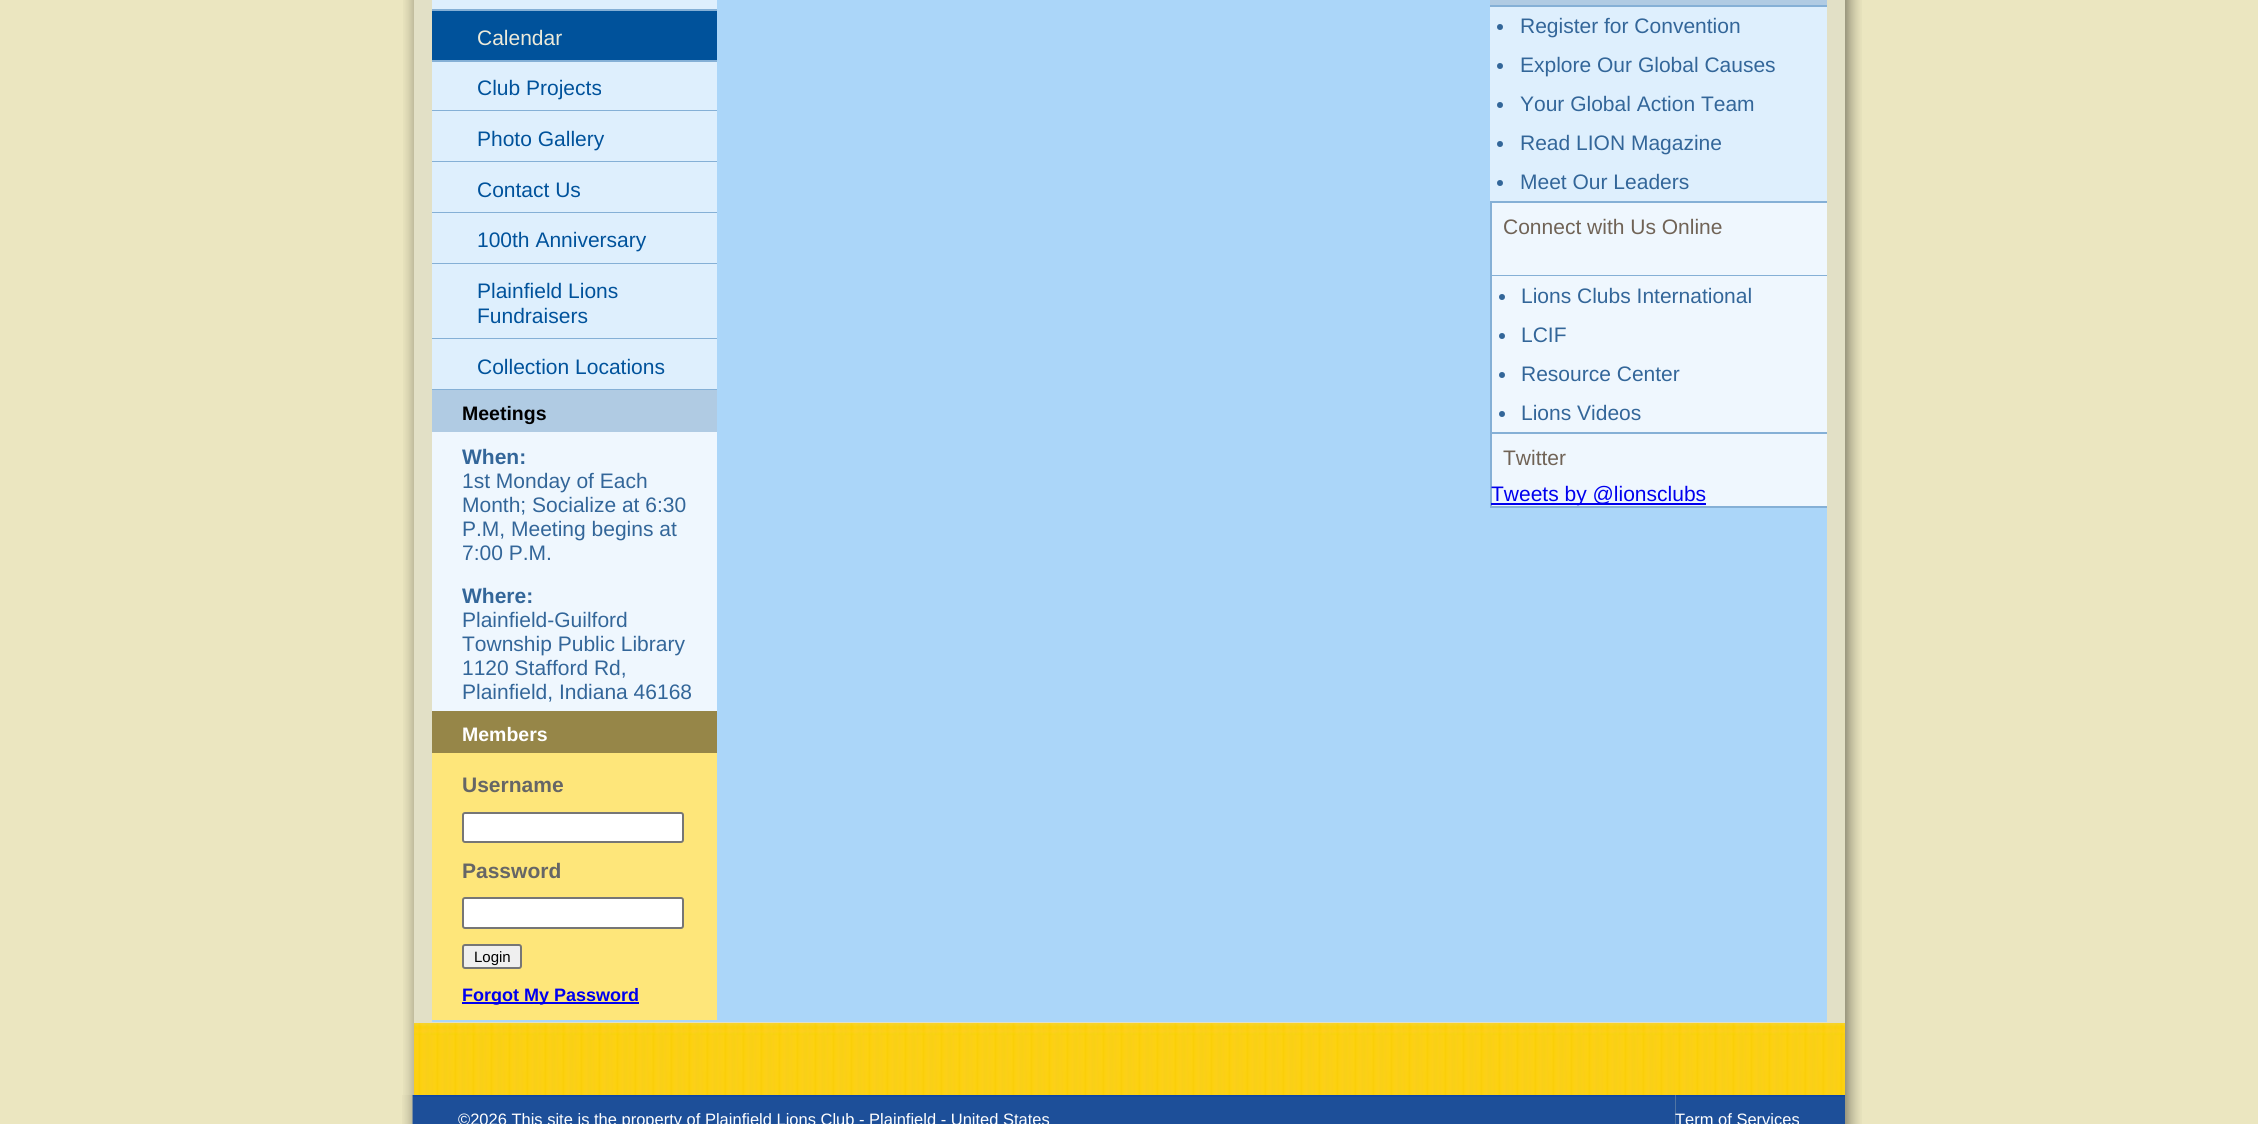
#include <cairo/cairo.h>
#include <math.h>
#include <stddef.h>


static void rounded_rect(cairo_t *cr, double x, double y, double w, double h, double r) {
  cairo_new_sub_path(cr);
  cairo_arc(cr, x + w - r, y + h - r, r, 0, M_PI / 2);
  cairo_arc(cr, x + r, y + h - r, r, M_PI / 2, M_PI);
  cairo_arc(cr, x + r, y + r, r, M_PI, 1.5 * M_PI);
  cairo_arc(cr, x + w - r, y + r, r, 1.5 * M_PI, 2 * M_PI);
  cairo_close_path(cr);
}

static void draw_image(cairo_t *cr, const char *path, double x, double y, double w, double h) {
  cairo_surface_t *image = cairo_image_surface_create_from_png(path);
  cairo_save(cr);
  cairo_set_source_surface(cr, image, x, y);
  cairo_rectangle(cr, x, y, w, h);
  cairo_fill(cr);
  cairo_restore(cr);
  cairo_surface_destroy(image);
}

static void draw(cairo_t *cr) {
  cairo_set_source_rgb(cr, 235 / 255.0, 230 / 255.0, 192 / 255.0);
  cairo_paint(cr);
  draw_image(cr, "images/1.png", 403, 0, 11, 1095);
  cairo_set_source_rgb(cr, 226 / 255.0, 224 / 255.0, 198 / 255.0);
  cairo_rectangle(cr, 414, 0, 1431, 1023);
  cairo_fill(cr);
  draw_image(cr, "images/2.png", 414, 1023, 1431, 72);
  cairo_set_source_rgb(cr, 171 / 255.0, 214 / 255.0, 249 / 255.0);
  cairo_rectangle(cr, 432, 0, 1395, 1022);
  cairo_fill(cr);
  cairo_set_source_rgb(cr, 133 / 255.0, 176 / 255.0, 214 / 255.0);
  cairo_rectangle(cr, 432, 9, 285, 2);
  cairo_fill(cr);
  cairo_set_source_rgb(cr, 222 / 255.0, 239 / 255.0, 253 / 255.0);
  cairo_rectangle(cr, 432, 0, 285, 9);
  cairo_fill(cr);
  cairo_set_source_rgb(cr, 133 / 255.0, 176 / 255.0, 214 / 255.0);
  cairo_rectangle(cr, 432, 60, 285, 2);
  cairo_fill(cr);
  cairo_set_source_rgb(cr, 0, 82 / 255.0, 155 / 255.0);
  cairo_rectangle(cr, 432, 11, 285, 49);
  cairo_fill(cr);
  cairo_set_source_rgb(cr, 133 / 255.0, 176 / 255.0, 214 / 255.0);
  cairo_rectangle(cr, 432, 110, 285, 1);
  cairo_fill(cr);
  cairo_set_source_rgb(cr, 222 / 255.0, 239 / 255.0, 253 / 255.0);
  cairo_rectangle(cr, 432, 62, 285, 48);
  cairo_fill(cr);
  cairo_set_source_rgb(cr, 133 / 255.0, 176 / 255.0, 214 / 255.0);
  cairo_rectangle(cr, 432, 161, 285, 1);
  cairo_fill(cr);
  cairo_set_source_rgb(cr, 222 / 255.0, 239 / 255.0, 253 / 255.0);
  cairo_rectangle(cr, 432, 111, 285, 50);
  cairo_fill(cr);
  cairo_set_source_rgb(cr, 133 / 255.0, 176 / 255.0, 214 / 255.0);
  cairo_rectangle(cr, 432, 212, 285, 1);
  cairo_fill(cr);
  cairo_set_source_rgb(cr, 222 / 255.0, 239 / 255.0, 253 / 255.0);
  cairo_rectangle(cr, 432, 162, 285, 50);
  cairo_fill(cr);
  cairo_set_source_rgb(cr, 133 / 255.0, 176 / 255.0, 214 / 255.0);
  cairo_rectangle(cr, 432, 263, 285, 1);
  cairo_fill(cr);
  cairo_set_source_rgb(cr, 222 / 255.0, 239 / 255.0, 253 / 255.0);
  cairo_rectangle(cr, 432, 213, 285, 50);
  cairo_fill(cr);
  cairo_set_source_rgb(cr, 133 / 255.0, 176 / 255.0, 214 / 255.0);
  cairo_rectangle(cr, 432, 338, 285, 1);
  cairo_fill(cr);
  cairo_set_source_rgb(cr, 222 / 255.0, 239 / 255.0, 253 / 255.0);
  cairo_rectangle(cr, 432, 264, 285, 74);
  cairo_fill(cr);
  cairo_set_source_rgb(cr, 133 / 255.0, 176 / 255.0, 214 / 255.0);
  cairo_rectangle(cr, 432, 389, 285, 1);
  cairo_fill(cr);
  cairo_set_source_rgb(cr, 222 / 255.0, 239 / 255.0, 253 / 255.0);
  cairo_rectangle(cr, 432, 339, 285, 50);
  cairo_fill(cr);
  cairo_set_source_rgb(cr, 239 / 255.0, 247 / 255.0, 254 / 255.0);
  cairo_rectangle(cr, 432, 432, 285, 279);
  cairo_fill(cr);
  cairo_set_source_rgb(cr, 176 / 255.0, 203 / 255.0, 227 / 255.0);
  cairo_rectangle(cr, 432, 390, 285, 42);
  cairo_fill(cr);
  cairo_set_source_rgb(cr, 254 / 255.0, 230 / 255.0, 122 / 255.0);
  cairo_rectangle(cr, 432, 753, 285, 267);
  cairo_fill(cr);
  cairo_set_source_rgb(cr, 150 / 255.0, 134 / 255.0, 72 / 255.0);
  cairo_rectangle(cr, 432, 711, 285, 42);
  cairo_fill(cr);
  cairo_set_source_rgb(cr, 1, 1, 1);
  rounded_rect(cr, 463, 813, 220, 29, 2);
  cairo_fill_preserve(cr);
  cairo_set_source_rgb(cr, 118 / 255.0, 118 / 255.0, 118 / 255.0);
  cairo_stroke(cr);
  cairo_set_source_rgb(cr, 1, 1, 1);
  rounded_rect(cr, 463, 898, 220, 30, 2);
  cairo_fill_preserve(cr);
  cairo_set_source_rgb(cr, 118 / 255.0, 118 / 255.0, 118 / 255.0);
  cairo_stroke(cr);
  cairo_set_source_rgb(cr, 239 / 255.0, 239 / 255.0, 239 / 255.0);
  rounded_rect(cr, 463, 945, 58, 23, 2);
  cairo_fill_preserve(cr);
  cairo_set_source_rgb(cr, 118 / 255.0, 118 / 255.0, 118 / 255.0);
  cairo_stroke(cr);
  cairo_set_source_rgb(cr, 0, 0, 238 / 255.0);
  cairo_rectangle(cr, 462, 1002, 177, 2);
  cairo_fill(cr);
  cairo_set_source_rgb(cr, 222 / 255.0, 239 / 255.0, 253 / 255.0);
  cairo_rectangle(cr, 1490, 7, 337, 194);
  cairo_fill(cr);
  cairo_set_source_rgb(cr, 176 / 255.0, 203 / 255.0, 227 / 255.0);
  cairo_rectangle(cr, 1490, 0, 337, 5);
  cairo_fill(cr);
  cairo_set_source_rgb(cr, 133 / 255.0, 176 / 255.0, 214 / 255.0);
  cairo_rectangle(cr, 1490, 5, 337, 2);
  cairo_fill(cr);
  cairo_set_source_rgb(cr, 51 / 255.0, 102 / 255.0, 153 / 255.0);
  cairo_arc(cr, 1500, 27, 3, 0, 2 * M_PI);
  cairo_fill(cr);
  cairo_arc(cr, 1500, 66, 3, 0, 2 * M_PI);
  cairo_fill(cr);
  cairo_arc(cr, 1500, 105, 3, 0, 2 * M_PI);
  cairo_fill(cr);
  cairo_arc(cr, 1500, 144, 3, 0, 2 * M_PI);
  cairo_fill(cr);
  cairo_arc(cr, 1500, 183, 3, 0, 2 * M_PI);
  cairo_fill(cr);
  cairo_set_source_rgb(cr, 133 / 255.0, 176 / 255.0, 214 / 255.0);
  cairo_rectangle(cr, 1490, 201, 337, 2);
  cairo_fill(cr);
  cairo_set_source_rgb(cr, 239 / 255.0, 247 / 255.0, 254 / 255.0);
  cairo_rectangle(cr, 1492, 203, 335, 72);
  cairo_fill(cr);
  cairo_set_source_rgb(cr, 133 / 255.0, 176 / 255.0, 214 / 255.0);
  cairo_rectangle(cr, 1490, 203, 2, 72);
  cairo_fill(cr);
  cairo_rectangle(cr, 1490, 275, 337, 1);
  cairo_fill(cr);
  cairo_set_source_rgb(cr, 239 / 255.0, 247 / 255.0, 254 / 255.0);
  cairo_rectangle(cr, 1492, 276, 335, 156);
  cairo_fill(cr);
  cairo_set_source_rgb(cr, 133 / 255.0, 176 / 255.0, 214 / 255.0);
  cairo_rectangle(cr, 1490, 276, 2, 156);
  cairo_fill(cr);
  cairo_set_source_rgb(cr, 51 / 255.0, 102 / 255.0, 153 / 255.0);
  cairo_arc(cr, 1502, 297, 3, 0, 2 * M_PI);
  cairo_fill(cr);
  cairo_arc(cr, 1502, 336, 3, 0, 2 * M_PI);
  cairo_fill(cr);
  cairo_arc(cr, 1502, 375, 3, 0, 2 * M_PI);
  cairo_fill(cr);
  cairo_arc(cr, 1502, 414, 3, 0, 2 * M_PI);
  cairo_fill(cr);
  cairo_set_source_rgb(cr, 133 / 255.0, 176 / 255.0, 214 / 255.0);
  cairo_rectangle(cr, 1490, 432, 337, 2);
  cairo_fill(cr);
  cairo_set_source_rgb(cr, 239 / 255.0, 247 / 255.0, 254 / 255.0);
  cairo_rectangle(cr, 1492, 434, 335, 72);
  cairo_fill(cr);
  cairo_set_source_rgb(cr, 133 / 255.0, 176 / 255.0, 214 / 255.0);
  cairo_rectangle(cr, 1490, 434, 2, 72);
  cairo_fill(cr);
  cairo_set_source_rgb(cr, 0, 0, 238 / 255.0);
  cairo_rectangle(cr, 1491, 503, 215, 2);
  cairo_fill(cr);
  cairo_set_source_rgb(cr, 133 / 255.0, 176 / 255.0, 214 / 255.0);
  cairo_rectangle(cr, 1490, 506, 337, 2);
  cairo_fill(cr);
  draw_image(cr, "images/3.png", 1845, 0, 17, 1095);
  draw_image(cr, "images/5.png", 412, 1095, 1264, 29);
  draw_image(cr, "images/4.png", 402, 1095, 11, 29);
  draw_image(cr, "images/6.png", 1675, 1095, 170, 29);
  draw_image(cr, "images/7.png", 1845, 1095, 17, 29);
  cairo_select_font_face(cr, "Liberation Sans", CAIRO_FONT_SLANT_NORMAL, CAIRO_FONT_WEIGHT_NORMAL);
  cairo_set_font_size(cr, 21);
  cairo_set_source_rgb(cr, 237 / 255.0, 234 / 255.0, 218 / 255.0);
  cairo_move_to(cr, 477, 45);
  cairo_show_text(cr, "Calendar");
  cairo_set_source_rgb(cr, 0, 82 / 255.0, 155 / 255.0);
  cairo_move_to(cr, 477, 95);
  cairo_show_text(cr, "Club Projects");
  cairo_move_to(cr, 477, 146);
  cairo_show_text(cr, "Photo Gallery");
  cairo_move_to(cr, 477, 197);
  cairo_show_text(cr, "Contact Us");
  cairo_move_to(cr, 477, 247);
  cairo_show_text(cr, "100th Anniversary");
  cairo_move_to(cr, 477, 298);
  cairo_show_text(cr, "Plainfield Lions");
  cairo_move_to(cr, 477, 323);
  cairo_show_text(cr, "Fundraisers");
  cairo_move_to(cr, 477, 374);
  cairo_show_text(cr, "Collection Locations");
  cairo_select_font_face(cr, "Liberation Sans", CAIRO_FONT_SLANT_NORMAL, CAIRO_FONT_WEIGHT_BOLD);
  cairo_set_font_size(cr, 19.5);
  cairo_set_source_rgb(cr, 0, 0, 0);
  cairo_move_to(cr, 462, 420);
  cairo_show_text(cr, "Meetings");
  cairo_set_font_size(cr, 21);
  cairo_set_source_rgb(cr, 51 / 255.0, 102 / 255.0, 153 / 255.0);
  cairo_move_to(cr, 462, 464);
  cairo_show_text(cr, "When:");
  cairo_select_font_face(cr, "Liberation Sans", CAIRO_FONT_SLANT_NORMAL, CAIRO_FONT_WEIGHT_NORMAL);
  cairo_move_to(cr, 462, 488);
  cairo_show_text(cr, "1st Monday of Each");
  cairo_move_to(cr, 462, 512);
  cairo_show_text(cr, "Month; Socialize at 6:30");
  cairo_move_to(cr, 462, 536);
  cairo_show_text(cr, "P.M, Meeting begins at");
  cairo_move_to(cr, 462, 560);
  cairo_show_text(cr, "7:00 P.M.");
  cairo_select_font_face(cr, "Liberation Sans", CAIRO_FONT_SLANT_NORMAL, CAIRO_FONT_WEIGHT_BOLD);
  cairo_move_to(cr, 462, 603);
  cairo_show_text(cr, "Where:");
  cairo_select_font_face(cr, "Liberation Sans", CAIRO_FONT_SLANT_NORMAL, CAIRO_FONT_WEIGHT_NORMAL);
  cairo_move_to(cr, 462, 627);
  cairo_show_text(cr, "Plainfield-Guilford");
  cairo_move_to(cr, 462, 651);
  cairo_show_text(cr, "Township Public Library");
  cairo_move_to(cr, 462, 675);
  cairo_show_text(cr, "1120 Stafford Rd,");
  cairo_move_to(cr, 462, 699);
  cairo_show_text(cr, "Plainfield, Indiana 46168");
  cairo_select_font_face(cr, "Liberation Sans", CAIRO_FONT_SLANT_NORMAL, CAIRO_FONT_WEIGHT_BOLD);
  cairo_set_font_size(cr, 19.5);
  cairo_set_source_rgb(cr, 1, 1, 1);
  cairo_move_to(cr, 462, 741);
  cairo_show_text(cr, "Members");
  cairo_set_font_size(cr, 21);
  cairo_set_source_rgb(cr, 102 / 255.0, 102 / 255.0, 102 / 255.0);
  cairo_move_to(cr, 462, 792);
  cairo_show_text(cr, "Username");
  cairo_move_to(cr, 462, 878);
  cairo_show_text(cr, "Password");
  cairo_select_font_face(cr, "Liberation Sans", CAIRO_FONT_SLANT_NORMAL, CAIRO_FONT_WEIGHT_NORMAL);
  cairo_set_font_size(cr, 15);
  cairo_set_source_rgb(cr, 0, 0, 0);
  cairo_move_to(cr, 474, 962);
  cairo_show_text(cr, "Login");
  cairo_select_font_face(cr, "Liberation Sans", CAIRO_FONT_SLANT_NORMAL, CAIRO_FONT_WEIGHT_BOLD);
  cairo_set_font_size(cr, 18);
  cairo_set_source_rgb(cr, 0, 0, 238 / 255.0);
  cairo_move_to(cr, 462, 1001);
  cairo_show_text(cr, "Forgot My Password");
  cairo_select_font_face(cr, "Liberation Sans", CAIRO_FONT_SLANT_NORMAL, CAIRO_FONT_WEIGHT_NORMAL);
  cairo_set_font_size(cr, 21);
  cairo_set_source_rgb(cr, 51 / 255.0, 102 / 255.0, 153 / 255.0);
  cairo_move_to(cr, 1520, 33);
  cairo_show_text(cr, "Register for Convention");
  cairo_move_to(cr, 1520, 72);
  cairo_show_text(cr, "Explore Our Global Causes");
  cairo_move_to(cr, 1520, 111);
  cairo_show_text(cr, "Your Global Action Team");
  cairo_move_to(cr, 1520, 150);
  cairo_show_text(cr, "Read LION Magazine");
  cairo_move_to(cr, 1520, 189);
  cairo_show_text(cr, "Meet Our Leaders");
  cairo_set_source_rgb(cr, 112 / 255.0, 99 / 255.0, 86 / 255.0);
  cairo_move_to(cr, 1503, 234);
  cairo_show_text(cr, "Connect with Us Online");
  cairo_set_source_rgb(cr, 51 / 255.0, 102 / 255.0, 153 / 255.0);
  cairo_move_to(cr, 1521, 303);
  cairo_show_text(cr, "Lions Clubs International");
  cairo_move_to(cr, 1521, 342);
  cairo_show_text(cr, "LCIF");
  cairo_move_to(cr, 1521, 381);
  cairo_show_text(cr, "Resource Center");
  cairo_move_to(cr, 1521, 420);
  cairo_show_text(cr, "Lions Videos");
  cairo_set_source_rgb(cr, 112 / 255.0, 99 / 255.0, 86 / 255.0);
  cairo_move_to(cr, 1503, 465);
  cairo_show_text(cr, "Twitter");
  cairo_set_source_rgb(cr, 0, 0, 238 / 255.0);
  cairo_move_to(cr, 1491, 501);
  cairo_show_text(cr, "Tweets by @lionsclubs");
  cairo_set_font_size(cr, 16.5);
  cairo_set_source_rgb(cr, 1, 1, 1);
  cairo_move_to(cr, 458, 1125);
  cairo_show_text(cr, "©2026 This site is the property of Plainfield Lions Club - Plainfield - United States");
  cairo_move_to(cr, 1675, 1125);
  cairo_show_text(cr, "Term of Services");
}

int main(void) {
  cairo_surface_t *surface = cairo_image_surface_create(CAIRO_FORMAT_RGB24, 2258, 1124);
  cairo_t *cr = cairo_create(surface);
  cairo_font_options_t *options = cairo_font_options_create();
  cairo_font_options_set_hint_metrics(options, CAIRO_HINT_METRICS_OFF);
  cairo_font_options_set_hint_style(options, CAIRO_HINT_STYLE_NONE);
  cairo_set_font_options(cr, options);
  cairo_set_miter_limit(cr, 4);
  draw(cr);
  cairo_surface_write_to_png(surface, "out.png");
  cairo_font_options_destroy(options);
  cairo_destroy(cr);
  cairo_surface_destroy(surface);
  return 0;
}
